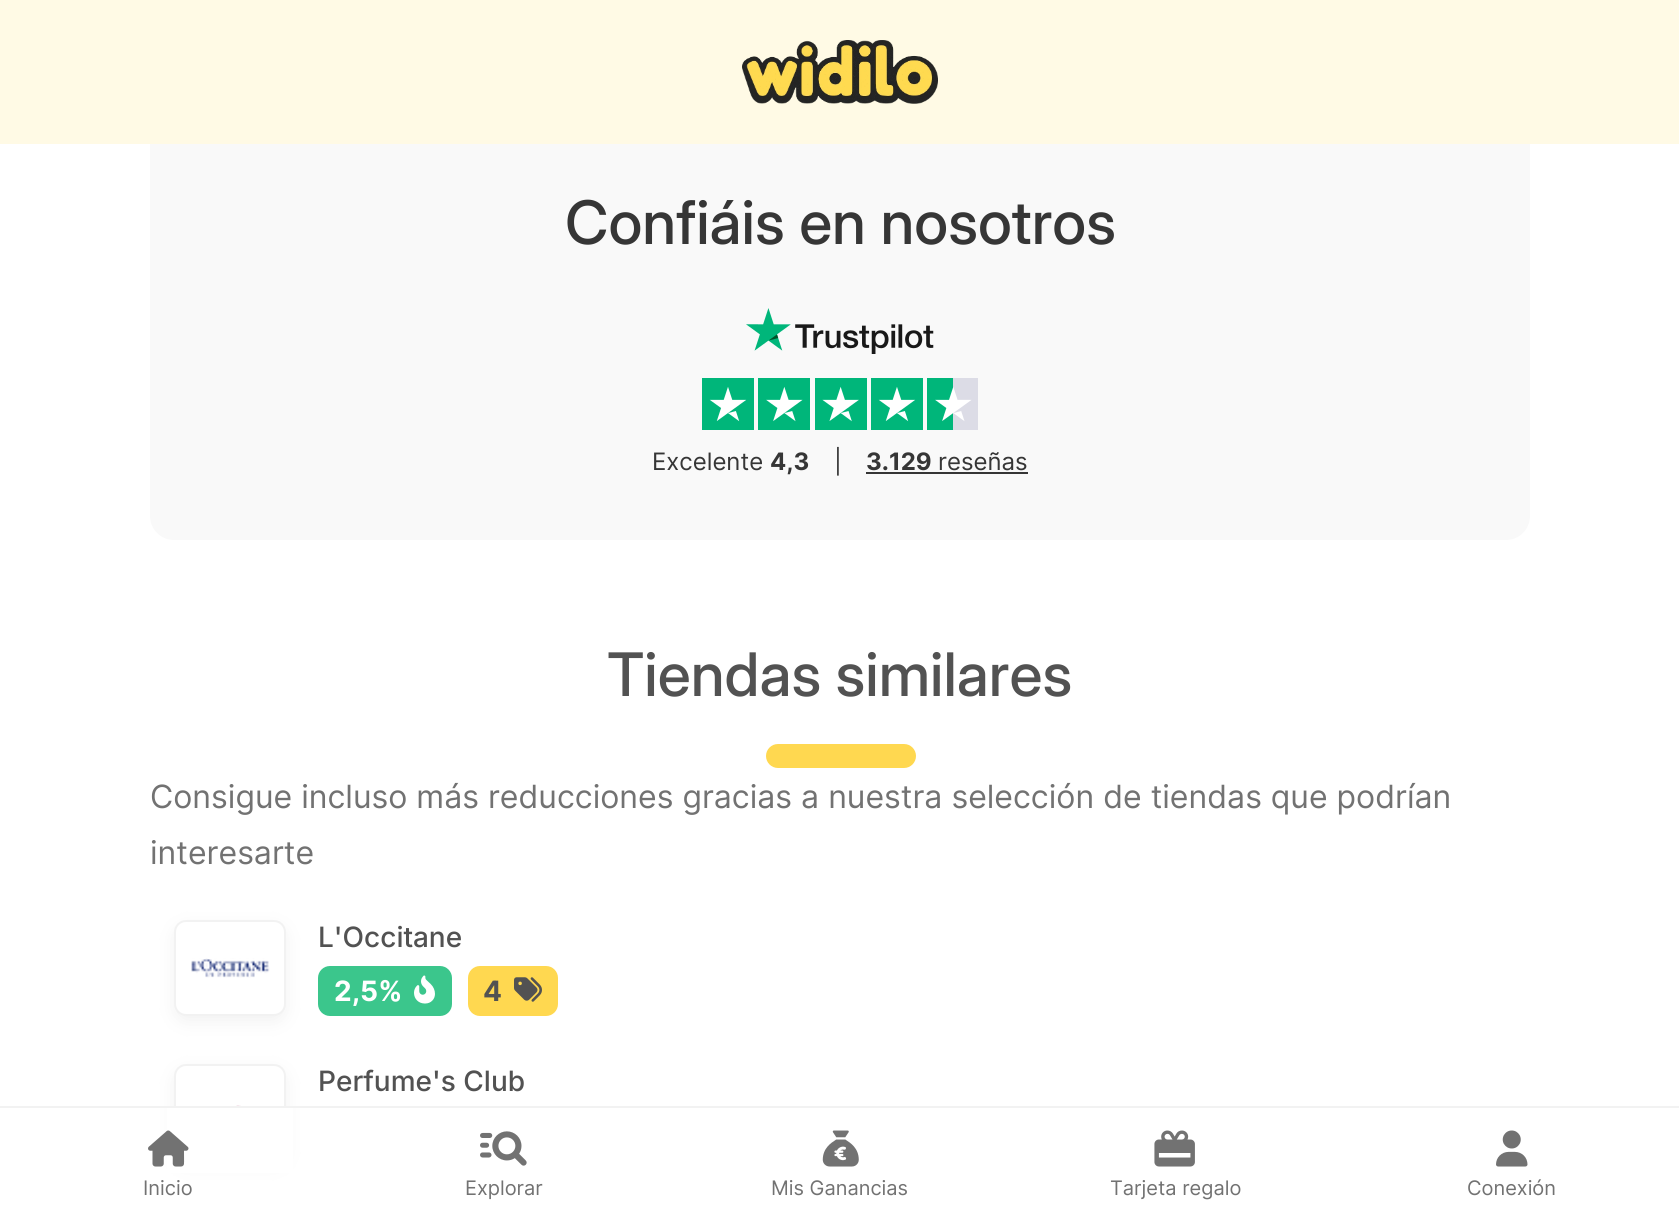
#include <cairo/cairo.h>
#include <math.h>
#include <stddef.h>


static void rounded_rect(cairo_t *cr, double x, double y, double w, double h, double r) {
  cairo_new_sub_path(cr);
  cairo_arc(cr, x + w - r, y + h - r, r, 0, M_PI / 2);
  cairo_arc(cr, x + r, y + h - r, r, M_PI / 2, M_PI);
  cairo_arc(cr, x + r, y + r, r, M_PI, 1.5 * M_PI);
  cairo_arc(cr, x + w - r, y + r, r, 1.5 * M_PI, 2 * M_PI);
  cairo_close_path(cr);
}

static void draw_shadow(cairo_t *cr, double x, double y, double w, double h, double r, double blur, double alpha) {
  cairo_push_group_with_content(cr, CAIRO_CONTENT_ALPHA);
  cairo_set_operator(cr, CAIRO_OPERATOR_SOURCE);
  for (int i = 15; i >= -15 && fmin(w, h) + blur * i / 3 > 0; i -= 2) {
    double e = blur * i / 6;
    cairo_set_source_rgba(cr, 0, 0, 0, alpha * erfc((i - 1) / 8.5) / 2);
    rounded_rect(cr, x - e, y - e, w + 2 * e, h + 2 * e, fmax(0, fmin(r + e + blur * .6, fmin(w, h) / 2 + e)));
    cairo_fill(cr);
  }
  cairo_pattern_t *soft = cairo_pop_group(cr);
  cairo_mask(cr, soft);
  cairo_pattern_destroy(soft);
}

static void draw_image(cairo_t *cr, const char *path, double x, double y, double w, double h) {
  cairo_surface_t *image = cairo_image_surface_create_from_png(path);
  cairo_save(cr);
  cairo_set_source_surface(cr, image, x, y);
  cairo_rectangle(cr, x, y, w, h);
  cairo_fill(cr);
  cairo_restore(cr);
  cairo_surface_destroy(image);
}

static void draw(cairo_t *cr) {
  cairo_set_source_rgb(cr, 1, 1, 1);
  cairo_paint(cr);
  cairo_set_source_rgb(cr, 249 / 255.0, 249 / 255.0, 249 / 255.0);
  rounded_rect(cr, 150, 120, 1380, 420, 24);
  cairo_fill(cr);
  cairo_set_source_rgb(cr, 1, 250 / 255.0, 229 / 255.0);
  cairo_rectangle(cr, 0, 0, 1679, 144);
  cairo_fill(cr);
  draw_image(cr, "images/1.png", 742, 40, 196, 64);
  draw_image(cr, "images/2.png", 746, 308, 188, 46);
  draw_image(cr, "images/3.png", 702, 378, 276, 52);
  cairo_set_source_rgb(cr, 54 / 255.0, 54 / 255.0, 54 / 255.0);
  cairo_rectangle(cr, 866, 472, 162, 2);
  cairo_fill(cr);
  cairo_set_source_rgb(cr, 1, 216 / 255.0, 80 / 255.0);
  rounded_rect(cr, 766, 744, 150, 24, 12);
  cairo_fill(cr);
  cairo_set_source_rgb(cr, 189 / 255.0, 189 / 255.0, 189 / 255.0);
  draw_shadow(cr, 174, 926, 112, 96, 12, 8, 0.2);
  cairo_set_source_rgb(cr, 1, 1, 1);
  rounded_rect(cr, 175, 921, 110, 94, 11);
  cairo_fill_preserve(cr);
  cairo_set_source_rgb(cr, 242 / 255.0, 242 / 255.0, 242 / 255.0);
  cairo_stroke(cr);
  draw_image(cr, "images/4.png", 191, 958, 79, 20);
  cairo_set_source_rgb(cr, 59 / 255.0, 198 / 255.0, 140 / 255.0);
  rounded_rect(cr, 318, 966, 134, 50, 12);
  cairo_fill(cr);
  draw_image(cr, "images/5.png", 414, 975, 21, 29);
  cairo_set_source_rgb(cr, 1, 216 / 255.0, 80 / 255.0);
  rounded_rect(cr, 468, 966, 90, 50, 12);
  cairo_fill(cr);
  draw_image(cr, "images/6.png", 514, 977, 28, 25);
  cairo_set_source_rgb(cr, 189 / 255.0, 189 / 255.0, 189 / 255.0);
  draw_shadow(cr, 174, 1070, 112, 96, 12, 8, 0.2);
  cairo_set_source_rgb(cr, 1, 1, 1);
  rounded_rect(cr, 175, 1065, 110, 94, 11);
  cairo_fill_preserve(cr);
  cairo_set_source_rgb(cr, 242 / 255.0, 242 / 255.0, 242 / 255.0);
  cairo_stroke(cr);
  draw_image(cr, "images/7.png", 236, 1105, 5, 1);
  cairo_set_source_rgb(cr, 1, 1, 1);
  cairo_rectangle(cr, 167, 1108, 126, 65);
  cairo_fill(cr);
  cairo_set_source_rgb(cr, 242 / 255.0, 242 / 255.0, 242 / 255.0);
  cairo_rectangle(cr, 0, 1106, 1679, 2);
  cairo_fill(cr);
  draw_image(cr, "images/8.png", 148, 1130, 41, 37);
  draw_image(cr, "images/9.png", 480, 1131, 47, 35);
  draw_image(cr, "images/10.png", 822, 1130, 37, 37);
  draw_image(cr, "images/11.png", 1154, 1130, 41, 37);
  draw_image(cr, "images/12.png", 1496, 1130, 32, 37);
  cairo_select_font_face(cr, "Inter Medium", CAIRO_FONT_SLANT_NORMAL, CAIRO_FONT_WEIGHT_NORMAL);
  cairo_set_font_size(cr, 60);
  cairo_set_source_rgb(cr, 54 / 255.0, 54 / 255.0, 54 / 255.0);
  cairo_move_to(cr, 565, 244);
  cairo_show_text(cr, "Confiáis en nosotros");
  cairo_select_font_face(cr, "Inter", CAIRO_FONT_SLANT_NORMAL, CAIRO_FONT_WEIGHT_NORMAL);
  cairo_set_font_size(cr, 24);
  cairo_move_to(cr, 652, 470);
  cairo_show_text(cr, "Excelente");
  cairo_select_font_face(cr, "Inter", CAIRO_FONT_SLANT_NORMAL, CAIRO_FONT_WEIGHT_BOLD);
  cairo_move_to(cr, 770, 470);
  cairo_show_text(cr, "4,3");
  cairo_select_font_face(cr, "Inter", CAIRO_FONT_SLANT_NORMAL, CAIRO_FONT_WEIGHT_NORMAL);
  cairo_move_to(cr, 834, 470);
  cairo_show_text(cr, "|");
  cairo_select_font_face(cr, "Inter", CAIRO_FONT_SLANT_NORMAL, CAIRO_FONT_WEIGHT_BOLD);
  cairo_move_to(cr, 866, 470);
  cairo_show_text(cr, "3.129");
  cairo_select_font_face(cr, "Inter", CAIRO_FONT_SLANT_NORMAL, CAIRO_FONT_WEIGHT_NORMAL);
  cairo_move_to(cr, 938, 470);
  cairo_show_text(cr, "reseñas");
  cairo_select_font_face(cr, "Inter Medium", CAIRO_FONT_SLANT_NORMAL, CAIRO_FONT_WEIGHT_NORMAL);
  cairo_set_font_size(cr, 60);
  cairo_set_source_rgb(cr, 82 / 255.0, 82 / 255.0, 82 / 255.0);
  cairo_move_to(cr, 607, 696);
  cairo_show_text(cr, "Tiendas similares");
  cairo_select_font_face(cr, "Inter", CAIRO_FONT_SLANT_NORMAL, CAIRO_FONT_WEIGHT_NORMAL);
  cairo_set_font_size(cr, 32);
  cairo_set_source_rgb(cr, 114 / 255.0, 114 / 255.0, 114 / 255.0);
  cairo_move_to(cr, 150, 808);
  cairo_show_text(cr, "Consigue incluso más reducciones gracias a nuestra selección de tiendas que podrían");
  cairo_move_to(cr, 150, 864);
  cairo_show_text(cr, "interesarte");
  cairo_select_font_face(cr, "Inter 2 Medium", CAIRO_FONT_SLANT_NORMAL, CAIRO_FONT_WEIGHT_NORMAL);
  cairo_set_font_size(cr, 28);
  cairo_set_source_rgb(cr, 82 / 255.0, 82 / 255.0, 82 / 255.0);
  cairo_move_to(cr, 318, 947);
  cairo_show_text(cr, "L'Occitane");
  cairo_select_font_face(cr, "Inter", CAIRO_FONT_SLANT_NORMAL, CAIRO_FONT_WEIGHT_BOLD);
  cairo_set_source_rgb(cr, 1, 1, 1);
  cairo_move_to(cr, 334, 1001);
  cairo_show_text(cr, "2,5%");
  cairo_set_source_rgb(cr, 82 / 255.0, 82 / 255.0, 82 / 255.0);
  cairo_move_to(cr, 483, 1001);
  cairo_show_text(cr, "4");
  cairo_select_font_face(cr, "Inter 2 Medium", CAIRO_FONT_SLANT_NORMAL, CAIRO_FONT_WEIGHT_NORMAL);
  cairo_move_to(cr, 318, 1091);
  cairo_show_text(cr, "Perfume's Club");
  cairo_select_font_face(cr, "Inter", CAIRO_FONT_SLANT_NORMAL, CAIRO_FONT_WEIGHT_NORMAL);
  cairo_set_font_size(cr, 20);
  cairo_set_source_rgb(cr, 114 / 255.0, 114 / 255.0, 114 / 255.0);
  cairo_move_to(cr, 143, 1195);
  cairo_show_text(cr, "Inicio");
  cairo_move_to(cr, 465, 1195);
  cairo_show_text(cr, "Explorar");
  cairo_move_to(cr, 771, 1195);
  cairo_show_text(cr, "Mis Ganancias");
  cairo_move_to(cr, 1110, 1195);
  cairo_show_text(cr, "Tarjeta regalo");
  cairo_move_to(cr, 1467, 1195);
  cairo_show_text(cr, "Conexión");
}

int main(void) {
  cairo_surface_t *surface = cairo_image_surface_create(CAIRO_FORMAT_RGB24, 1679, 1217);
  cairo_t *cr = cairo_create(surface);
  cairo_font_options_t *options = cairo_font_options_create();
  cairo_font_options_set_hint_metrics(options, CAIRO_HINT_METRICS_OFF);
  cairo_font_options_set_hint_style(options, CAIRO_HINT_STYLE_NONE);
  cairo_set_font_options(cr, options);
  cairo_set_miter_limit(cr, 4);
  draw(cr);
  cairo_surface_write_to_png(surface, "out.png");
  cairo_font_options_destroy(options);
  cairo_destroy(cr);
  cairo_surface_destroy(surface);
  return 0;
}
